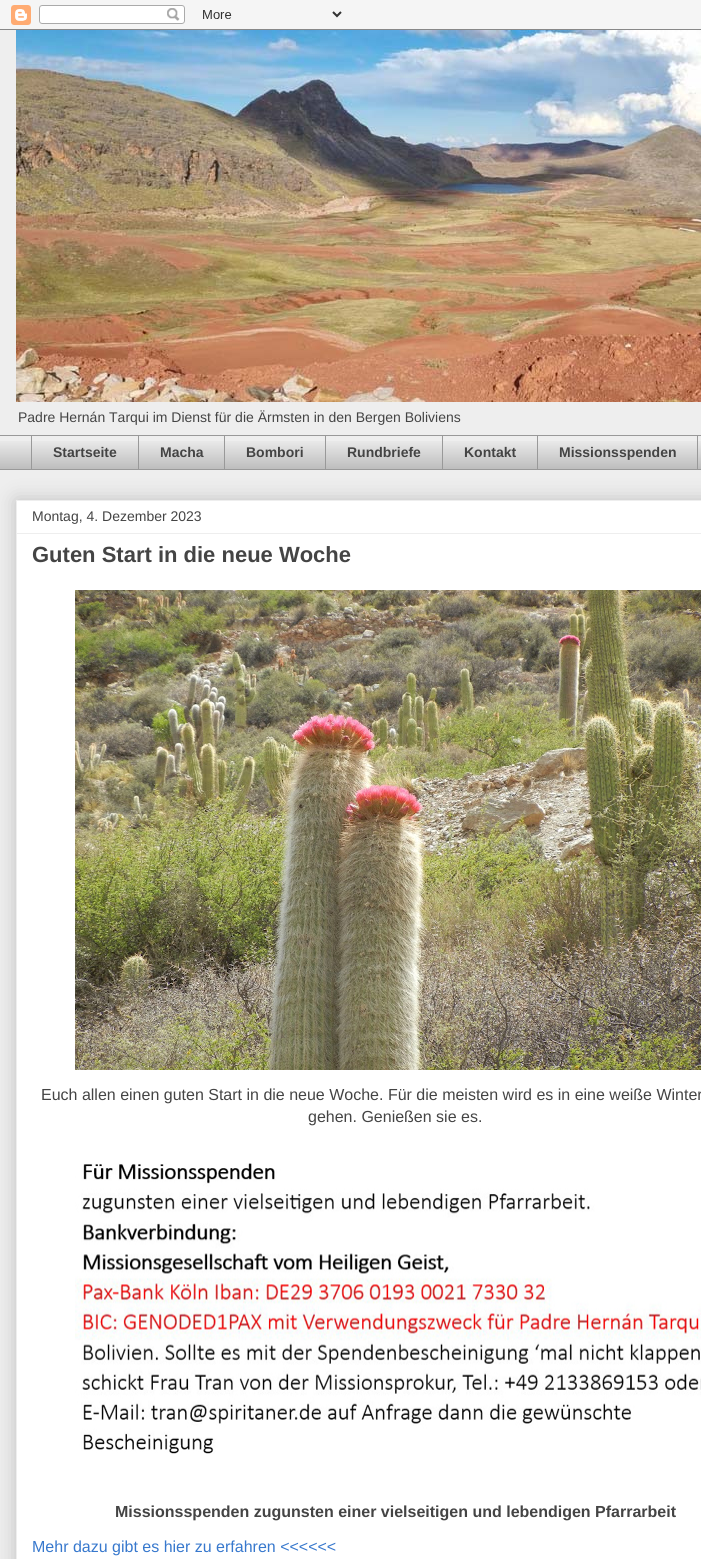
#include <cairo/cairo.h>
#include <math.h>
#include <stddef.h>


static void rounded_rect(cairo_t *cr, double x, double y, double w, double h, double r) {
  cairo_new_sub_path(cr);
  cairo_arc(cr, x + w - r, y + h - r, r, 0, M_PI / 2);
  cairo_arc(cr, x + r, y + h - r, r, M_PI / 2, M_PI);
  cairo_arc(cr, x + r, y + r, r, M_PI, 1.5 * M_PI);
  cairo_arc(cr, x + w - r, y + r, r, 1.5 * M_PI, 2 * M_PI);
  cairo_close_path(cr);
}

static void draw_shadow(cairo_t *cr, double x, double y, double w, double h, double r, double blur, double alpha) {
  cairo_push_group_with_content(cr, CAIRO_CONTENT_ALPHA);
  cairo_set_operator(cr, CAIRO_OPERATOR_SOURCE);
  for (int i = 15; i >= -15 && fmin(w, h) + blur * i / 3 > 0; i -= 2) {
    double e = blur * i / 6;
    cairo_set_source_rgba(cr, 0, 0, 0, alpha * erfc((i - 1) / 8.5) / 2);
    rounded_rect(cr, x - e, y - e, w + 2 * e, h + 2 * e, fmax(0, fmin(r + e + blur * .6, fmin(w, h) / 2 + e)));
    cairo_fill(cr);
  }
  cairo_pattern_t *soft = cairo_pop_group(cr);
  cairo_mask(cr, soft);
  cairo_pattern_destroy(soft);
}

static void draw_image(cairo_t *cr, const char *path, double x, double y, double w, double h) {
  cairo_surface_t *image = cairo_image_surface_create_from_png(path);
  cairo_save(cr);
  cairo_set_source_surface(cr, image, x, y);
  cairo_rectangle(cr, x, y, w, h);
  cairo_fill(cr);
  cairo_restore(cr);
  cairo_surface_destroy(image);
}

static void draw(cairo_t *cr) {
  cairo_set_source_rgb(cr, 238 / 255.0, 238 / 255.0, 238 / 255.0);
  cairo_paint(cr);
  draw_image(cr, "images/1.png", 0, 0, 701, 30);
  draw_image(cr, "images/2.png", 16, 30, 685, 372);
  draw_image(cr, "images/3.png", 0, 441, 701, 28);
  cairo_set_source_rgb(cr, 153 / 255.0, 153 / 255.0, 153 / 255.0);
  cairo_rectangle(cr, 0, 435, 701, 1);
  cairo_fill(cr);
  cairo_rectangle(cr, 31, 435, 1, 35);
  cairo_fill(cr);
  cairo_rectangle(cr, 138, 435, 1, 35);
  cairo_fill(cr);
  cairo_rectangle(cr, 224, 435, 1, 35);
  cairo_fill(cr);
  cairo_rectangle(cr, 325, 435, 1, 35);
  cairo_fill(cr);
  cairo_rectangle(cr, 442, 435, 1, 35);
  cairo_fill(cr);
  cairo_rectangle(cr, 537, 435, 1, 35);
  cairo_fill(cr);
  cairo_rectangle(cr, 697, 435, 1, 35);
  cairo_fill(cr);
  cairo_rectangle(cr, 0, 469, 701, 1);
  cairo_fill(cr);
  cairo_set_source_rgb(cr, 0, 0, 0);
  draw_shadow(cr, 16, 500, 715, 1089, 0, 10, 0.2);
  cairo_set_source_rgb(cr, 1, 1, 1);
  cairo_rectangle(cr, 16.5, 500.5, 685, 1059);
  cairo_fill_preserve(cr);
  cairo_set_source_rgb(cr, 238 / 255.0, 238 / 255.0, 238 / 255.0);
  cairo_set_line_width(cr, 1);
  cairo_stroke(cr);
  cairo_rectangle(cr, 17, 533, 684, 1);
  cairo_fill(cr);
  draw_image(cr, "images/4.png", 75, 590, 626, 480);
  draw_image(cr, "images/5.png", 75, 1163, 626, 291);
  cairo_select_font_face(cr, "Liberation Sans", CAIRO_FONT_SLANT_NORMAL, CAIRO_FONT_WEIGHT_NORMAL);
  cairo_set_font_size(cr, 14);
  cairo_set_source_rgb(cr, 68 / 255.0, 68 / 255.0, 68 / 255.0);
  cairo_move_to(cr, 18, 422);
  cairo_show_text(cr, "Padre Hernán Tarqui im Dienst für die Ärmsten in den Bergen Boliviens");
  cairo_select_font_face(cr, "Liberation Sans", CAIRO_FONT_SLANT_NORMAL, CAIRO_FONT_WEIGHT_BOLD);
  cairo_move_to(cr, 53, 457);
  cairo_show_text(cr, "Startseite");
  cairo_move_to(cr, 160, 457);
  cairo_show_text(cr, "Macha");
  cairo_move_to(cr, 246, 457);
  cairo_show_text(cr, "Bombori");
  cairo_move_to(cr, 347, 457);
  cairo_show_text(cr, "Rundbriefe");
  cairo_move_to(cr, 464, 457);
  cairo_show_text(cr, "Kontakt");
  cairo_move_to(cr, 559, 457);
  cairo_show_text(cr, "Missionsspenden");
  cairo_select_font_face(cr, "Liberation Sans", CAIRO_FONT_SLANT_NORMAL, CAIRO_FONT_WEIGHT_NORMAL);
  cairo_move_to(cr, 32, 521);
  cairo_show_text(cr, "Montag, 4. Dezember 2023");
  cairo_select_font_face(cr, "Liberation Sans", CAIRO_FONT_SLANT_NORMAL, CAIRO_FONT_WEIGHT_BOLD);
  cairo_set_font_size(cr, 22);
  cairo_move_to(cr, 32, 562);
  cairo_show_text(cr, "Guten Start in die neue Woche");
  cairo_select_font_face(cr, "Liberation Sans", CAIRO_FONT_SLANT_NORMAL, CAIRO_FONT_WEIGHT_NORMAL);
  cairo_set_font_size(cr, 16);
  cairo_move_to(cr, 41, 1100);
  cairo_show_text(cr, "Euch allen einen guten Start in die neue Woche. Für die meisten wird es in eine weiße Winter");
  cairo_move_to(cr, 308, 1122);
  cairo_show_text(cr, "gehen. Genießen sie es.");
  cairo_select_font_face(cr, "Liberation Sans", CAIRO_FONT_SLANT_NORMAL, CAIRO_FONT_WEIGHT_BOLD);
  cairo_move_to(cr, 115, 1517);
  cairo_show_text(cr, "Missionsspenden zugunsten einer vielseitigen und lebendigen Pfarrarbeit");
  cairo_select_font_face(cr, "Liberation Sans", CAIRO_FONT_SLANT_NORMAL, CAIRO_FONT_WEIGHT_NORMAL);
  cairo_set_source_rgb(cr, 55 / 255.0, 120 / 255.0, 205 / 255.0);
  cairo_move_to(cr, 32, 1552);
  cairo_show_text(cr, "Mehr dazu gibt es hier zu erfahren <<<<<<");
}

int main(void) {
  cairo_surface_t *surface = cairo_image_surface_create(CAIRO_FORMAT_RGB24, 701, 1559);
  cairo_t *cr = cairo_create(surface);
  cairo_font_options_t *options = cairo_font_options_create();
  cairo_font_options_set_hint_metrics(options, CAIRO_HINT_METRICS_OFF);
  cairo_font_options_set_hint_style(options, CAIRO_HINT_STYLE_NONE);
  cairo_set_font_options(cr, options);
  cairo_set_miter_limit(cr, 4);
  draw(cr);
  cairo_surface_write_to_png(surface, "out.png");
  cairo_font_options_destroy(options);
  cairo_destroy(cr);
  cairo_surface_destroy(surface);
  return 0;
}
